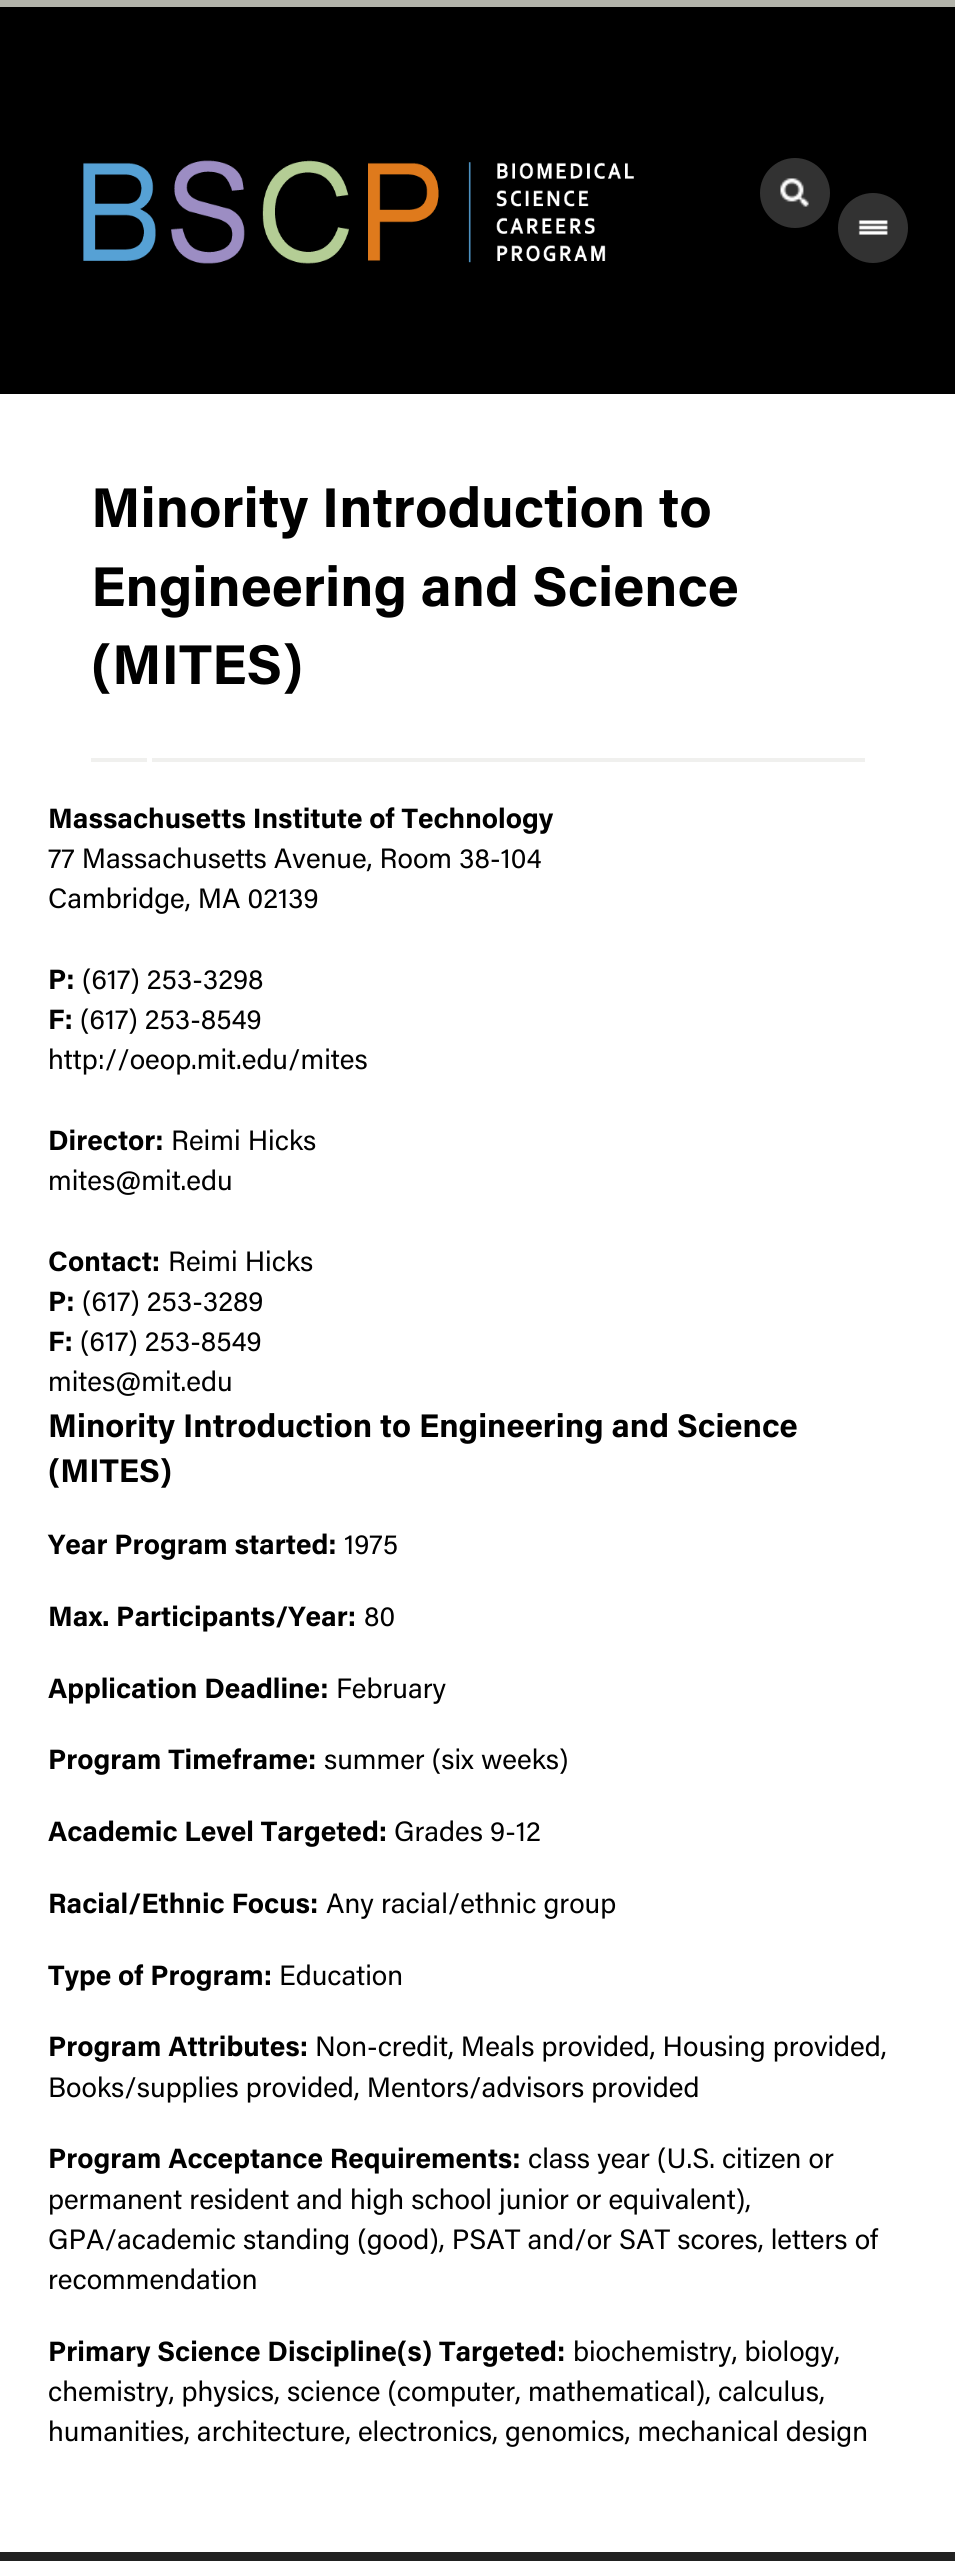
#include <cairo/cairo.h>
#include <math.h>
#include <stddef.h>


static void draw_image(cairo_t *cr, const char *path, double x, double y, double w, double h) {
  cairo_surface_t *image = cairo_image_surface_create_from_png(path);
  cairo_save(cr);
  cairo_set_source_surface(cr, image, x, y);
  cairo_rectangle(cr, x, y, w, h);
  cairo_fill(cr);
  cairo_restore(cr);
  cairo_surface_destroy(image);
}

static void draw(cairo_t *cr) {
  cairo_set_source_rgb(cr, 0, 0, 0);
  cairo_paint(cr);
  cairo_set_source_rgb(cr, 178 / 255.0, 179 / 255.0, 170 / 255.0);
  cairo_rectangle(cr, 0, 0, 955, 7);
  cairo_fill(cr);
  draw_image(cr, "images/1.png", 83, 160, 551, 104);
  cairo_set_source_rgb(cr, 50 / 255.0, 50 / 255.0, 50 / 255.0);
  cairo_arc(cr, 795, 193, 35, 0, 2 * M_PI);
  cairo_fill(cr);
  draw_image(cr, "images/2.png", 780, 178, 29, 29);
  cairo_arc(cr, 873, 228, 35, 0, 2 * M_PI);
  cairo_fill(cr);
  draw_image(cr, "images/3.png", 858, 220, 30, 15);
  cairo_set_source_rgb(cr, 1, 1, 1);
  cairo_rectangle(cr, 0, 394, 955, 2158);
  cairo_fill(cr);
  cairo_set_source_rgb(cr, 240 / 255.0, 240 / 255.0, 238 / 255.0);
  cairo_rectangle(cr, 91, 758, 774, 4);
  cairo_fill(cr);
  cairo_set_source_rgb(cr, 1, 1, 1);
  cairo_rectangle(cr, 147, 758, 5, 4);
  cairo_fill(cr);
  cairo_set_source_rgb(cr, 34 / 255.0, 34 / 255.0, 34 / 255.0);
  cairo_rectangle(cr, 0, 2552, 955, 9);
  cairo_fill(cr);
  cairo_select_font_face(cr, "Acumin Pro", CAIRO_FONT_SLANT_NORMAL, CAIRO_FONT_WEIGHT_BOLD);
  cairo_set_font_size(cr, 56);
  cairo_set_source_rgb(cr, 0, 0, 0);
  cairo_move_to(cr, 91, 527);
  cairo_show_text(cr, "Minority Introduction to");
  cairo_move_to(cr, 91, 606);
  cairo_show_text(cr, "Engineering and Science");
  cairo_move_to(cr, 91, 684);
  cairo_show_text(cr, "(MITES)");
  cairo_set_font_size(cr, 28);
  cairo_move_to(cr, 48, 828);
  cairo_show_text(cr, "Massachusetts Institute of Technology");
  cairo_select_font_face(cr, "Acumin Pro", CAIRO_FONT_SLANT_NORMAL, CAIRO_FONT_WEIGHT_NORMAL);
  cairo_move_to(cr, 48, 868);
  cairo_show_text(cr, "77 Massachusetts Avenue, Room 38-104");
  cairo_move_to(cr, 48, 908);
  cairo_show_text(cr, "Cambridge, MA 02139");
  cairo_select_font_face(cr, "Acumin Pro", CAIRO_FONT_SLANT_NORMAL, CAIRO_FONT_WEIGHT_BOLD);
  cairo_move_to(cr, 48, 989);
  cairo_show_text(cr, "P:");
  cairo_select_font_face(cr, "Acumin Pro", CAIRO_FONT_SLANT_NORMAL, CAIRO_FONT_WEIGHT_NORMAL);
  cairo_move_to(cr, 82, 989);
  cairo_show_text(cr, "(617) 253-3298");
  cairo_select_font_face(cr, "Acumin Pro", CAIRO_FONT_SLANT_NORMAL, CAIRO_FONT_WEIGHT_BOLD);
  cairo_move_to(cr, 48, 1029);
  cairo_show_text(cr, "F:");
  cairo_select_font_face(cr, "Acumin Pro", CAIRO_FONT_SLANT_NORMAL, CAIRO_FONT_WEIGHT_NORMAL);
  cairo_move_to(cr, 80, 1029);
  cairo_show_text(cr, "(617) 253-8549");
  cairo_move_to(cr, 48, 1069);
  cairo_show_text(cr, "http://oeop.mit.edu/mites");
  cairo_select_font_face(cr, "Acumin Pro", CAIRO_FONT_SLANT_NORMAL, CAIRO_FONT_WEIGHT_BOLD);
  cairo_move_to(cr, 48, 1150);
  cairo_show_text(cr, "Director:");
  cairo_select_font_face(cr, "Acumin Pro", CAIRO_FONT_SLANT_NORMAL, CAIRO_FONT_WEIGHT_NORMAL);
  cairo_move_to(cr, 171, 1150);
  cairo_show_text(cr, "Reimi Hicks");
  cairo_move_to(cr, 48, 1190);
  cairo_show_text(cr, "mites@mit.edu");
  cairo_select_font_face(cr, "Acumin Pro", CAIRO_FONT_SLANT_NORMAL, CAIRO_FONT_WEIGHT_BOLD);
  cairo_move_to(cr, 48, 1271);
  cairo_show_text(cr, "Contact:");
  cairo_select_font_face(cr, "Acumin Pro", CAIRO_FONT_SLANT_NORMAL, CAIRO_FONT_WEIGHT_NORMAL);
  cairo_move_to(cr, 168, 1271);
  cairo_show_text(cr, "Reimi Hicks");
  cairo_select_font_face(cr, "Acumin Pro", CAIRO_FONT_SLANT_NORMAL, CAIRO_FONT_WEIGHT_BOLD);
  cairo_move_to(cr, 48, 1311);
  cairo_show_text(cr, "P:");
  cairo_select_font_face(cr, "Acumin Pro", CAIRO_FONT_SLANT_NORMAL, CAIRO_FONT_WEIGHT_NORMAL);
  cairo_move_to(cr, 82, 1311);
  cairo_show_text(cr, "(617) 253-3289");
  cairo_select_font_face(cr, "Acumin Pro", CAIRO_FONT_SLANT_NORMAL, CAIRO_FONT_WEIGHT_BOLD);
  cairo_move_to(cr, 48, 1351);
  cairo_show_text(cr, "F:");
  cairo_select_font_face(cr, "Acumin Pro", CAIRO_FONT_SLANT_NORMAL, CAIRO_FONT_WEIGHT_NORMAL);
  cairo_move_to(cr, 80, 1351);
  cairo_show_text(cr, "(617) 253-8549");
  cairo_move_to(cr, 48, 1391);
  cairo_show_text(cr, "mites@mit.edu");
  cairo_select_font_face(cr, "Acumin Pro", CAIRO_FONT_SLANT_NORMAL, CAIRO_FONT_WEIGHT_BOLD);
  cairo_set_font_size(cr, 32.75);
  cairo_move_to(cr, 48, 1437);
  cairo_show_text(cr, "Minority Introduction to Engineering and Science");
  cairo_move_to(cr, 48, 1482);
  cairo_show_text(cr, "(MITES)");
  cairo_set_font_size(cr, 28);
  cairo_move_to(cr, 48, 1554);
  cairo_show_text(cr, "Year Program started:");
  cairo_select_font_face(cr, "Acumin Pro", CAIRO_FONT_SLANT_NORMAL, CAIRO_FONT_WEIGHT_NORMAL);
  cairo_move_to(cr, 344, 1554);
  cairo_show_text(cr, "1975");
  cairo_select_font_face(cr, "Acumin Pro", CAIRO_FONT_SLANT_NORMAL, CAIRO_FONT_WEIGHT_BOLD);
  cairo_move_to(cr, 48, 1626);
  cairo_show_text(cr, "Max. Participants/Year:");
  cairo_select_font_face(cr, "Acumin Pro", CAIRO_FONT_SLANT_NORMAL, CAIRO_FONT_WEIGHT_NORMAL);
  cairo_move_to(cr, 364, 1626);
  cairo_show_text(cr, "80");
  cairo_select_font_face(cr, "Acumin Pro", CAIRO_FONT_SLANT_NORMAL, CAIRO_FONT_WEIGHT_BOLD);
  cairo_move_to(cr, 48, 1698);
  cairo_show_text(cr, "Application Deadline:");
  cairo_select_font_face(cr, "Acumin Pro", CAIRO_FONT_SLANT_NORMAL, CAIRO_FONT_WEIGHT_NORMAL);
  cairo_move_to(cr, 336, 1698);
  cairo_show_text(cr, "February");
  cairo_select_font_face(cr, "Acumin Pro", CAIRO_FONT_SLANT_NORMAL, CAIRO_FONT_WEIGHT_BOLD);
  cairo_move_to(cr, 48, 1769);
  cairo_show_text(cr, "Program Timeframe:");
  cairo_select_font_face(cr, "Acumin Pro", CAIRO_FONT_SLANT_NORMAL, CAIRO_FONT_WEIGHT_NORMAL);
  cairo_move_to(cr, 324, 1769);
  cairo_show_text(cr, "summer (six weeks)");
  cairo_select_font_face(cr, "Acumin Pro", CAIRO_FONT_SLANT_NORMAL, CAIRO_FONT_WEIGHT_BOLD);
  cairo_move_to(cr, 48, 1841);
  cairo_show_text(cr, "Academic Level Targeted:");
  cairo_select_font_face(cr, "Acumin Pro", CAIRO_FONT_SLANT_NORMAL, CAIRO_FONT_WEIGHT_NORMAL);
  cairo_move_to(cr, 394, 1841);
  cairo_show_text(cr, "Grades 9-12");
  cairo_select_font_face(cr, "Acumin Pro", CAIRO_FONT_SLANT_NORMAL, CAIRO_FONT_WEIGHT_BOLD);
  cairo_move_to(cr, 48, 1913);
  cairo_show_text(cr, "Racial/Ethnic Focus:");
  cairo_select_font_face(cr, "Acumin Pro", CAIRO_FONT_SLANT_NORMAL, CAIRO_FONT_WEIGHT_NORMAL);
  cairo_move_to(cr, 326, 1913);
  cairo_show_text(cr, "Any racial/ethnic group");
  cairo_select_font_face(cr, "Acumin Pro", CAIRO_FONT_SLANT_NORMAL, CAIRO_FONT_WEIGHT_BOLD);
  cairo_move_to(cr, 48, 1985);
  cairo_show_text(cr, "Type of Program:");
  cairo_select_font_face(cr, "Acumin Pro", CAIRO_FONT_SLANT_NORMAL, CAIRO_FONT_WEIGHT_NORMAL);
  cairo_move_to(cr, 279, 1985);
  cairo_show_text(cr, "Education");
  cairo_select_font_face(cr, "Acumin Pro", CAIRO_FONT_SLANT_NORMAL, CAIRO_FONT_WEIGHT_BOLD);
  cairo_move_to(cr, 48, 2056);
  cairo_show_text(cr, "Program Attributes:");
  cairo_select_font_face(cr, "Acumin Pro", CAIRO_FONT_SLANT_NORMAL, CAIRO_FONT_WEIGHT_NORMAL);
  cairo_move_to(cr, 315, 2056);
  cairo_show_text(cr, "Non-credit, Meals provided, Housing provided,");
  cairo_move_to(cr, 48, 2097);
  cairo_show_text(cr, "Books/supplies provided, Mentors/advisors provided");
  cairo_select_font_face(cr, "Acumin Pro", CAIRO_FONT_SLANT_NORMAL, CAIRO_FONT_WEIGHT_BOLD);
  cairo_move_to(cr, 48, 2168);
  cairo_show_text(cr, "Program Acceptance Requirements:");
  cairo_select_font_face(cr, "Acumin Pro", CAIRO_FONT_SLANT_NORMAL, CAIRO_FONT_WEIGHT_NORMAL);
  cairo_move_to(cr, 528, 2168);
  cairo_show_text(cr, "class year (U.S. citizen or");
  cairo_move_to(cr, 48, 2209);
  cairo_show_text(cr, "permanent resident and high school junior or equivalent),");
  cairo_move_to(cr, 48, 2249);
  cairo_show_text(cr, "GPA/academic standing (good), PSAT and/or SAT scores, letters of");
  cairo_move_to(cr, 48, 2289);
  cairo_show_text(cr, "recommendation");
  cairo_select_font_face(cr, "Acumin Pro", CAIRO_FONT_SLANT_NORMAL, CAIRO_FONT_WEIGHT_BOLD);
  cairo_move_to(cr, 48, 2361);
  cairo_show_text(cr, "Primary Science Discipline(s) Targeted:");
  cairo_select_font_face(cr, "Acumin Pro", CAIRO_FONT_SLANT_NORMAL, CAIRO_FONT_WEIGHT_NORMAL);
  cairo_move_to(cr, 573, 2361);
  cairo_show_text(cr, "biochemistry, biology,");
  cairo_move_to(cr, 48, 2401);
  cairo_show_text(cr, "chemistry, physics, science (computer, mathematical), calculus,");
  cairo_move_to(cr, 48, 2441);
  cairo_show_text(cr, "humanities, architecture, electronics, genomics, mechanical design");
}

int main(void) {
  cairo_surface_t *surface = cairo_image_surface_create(CAIRO_FORMAT_RGB24, 955, 2561);
  cairo_t *cr = cairo_create(surface);
  cairo_font_options_t *options = cairo_font_options_create();
  cairo_font_options_set_hint_metrics(options, CAIRO_HINT_METRICS_OFF);
  cairo_font_options_set_hint_style(options, CAIRO_HINT_STYLE_NONE);
  cairo_set_font_options(cr, options);
  cairo_set_miter_limit(cr, 4);
  draw(cr);
  cairo_surface_write_to_png(surface, "out.png");
  cairo_font_options_destroy(options);
  cairo_destroy(cr);
  cairo_surface_destroy(surface);
  return 0;
}
